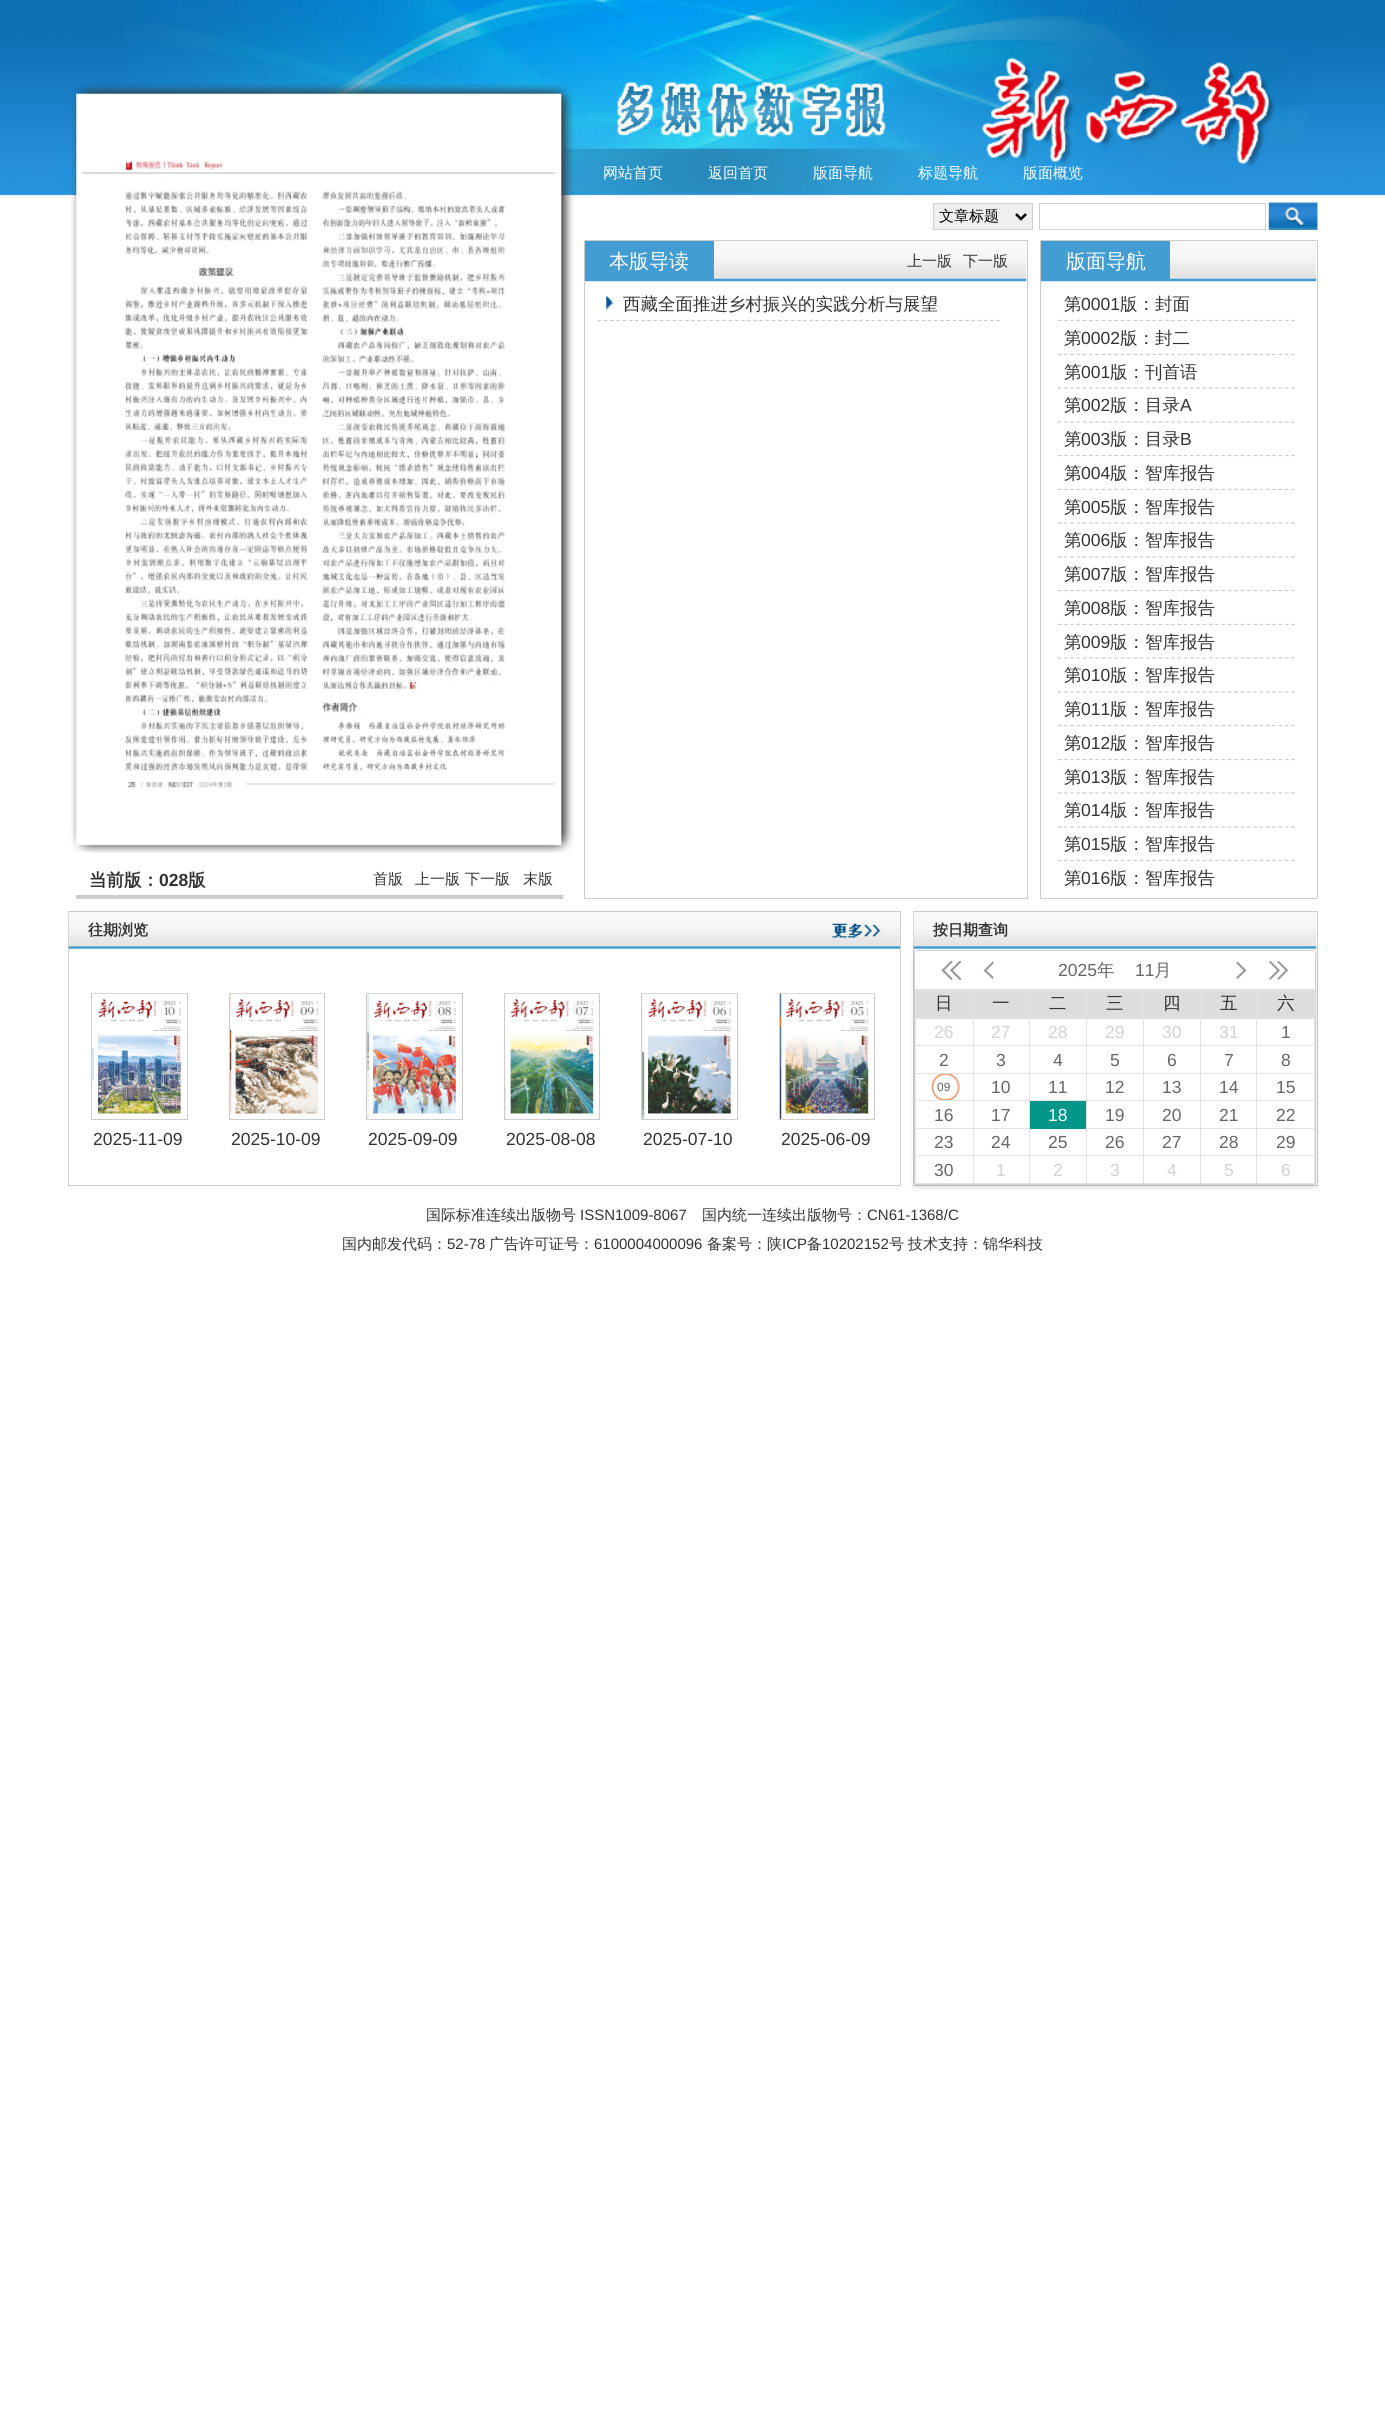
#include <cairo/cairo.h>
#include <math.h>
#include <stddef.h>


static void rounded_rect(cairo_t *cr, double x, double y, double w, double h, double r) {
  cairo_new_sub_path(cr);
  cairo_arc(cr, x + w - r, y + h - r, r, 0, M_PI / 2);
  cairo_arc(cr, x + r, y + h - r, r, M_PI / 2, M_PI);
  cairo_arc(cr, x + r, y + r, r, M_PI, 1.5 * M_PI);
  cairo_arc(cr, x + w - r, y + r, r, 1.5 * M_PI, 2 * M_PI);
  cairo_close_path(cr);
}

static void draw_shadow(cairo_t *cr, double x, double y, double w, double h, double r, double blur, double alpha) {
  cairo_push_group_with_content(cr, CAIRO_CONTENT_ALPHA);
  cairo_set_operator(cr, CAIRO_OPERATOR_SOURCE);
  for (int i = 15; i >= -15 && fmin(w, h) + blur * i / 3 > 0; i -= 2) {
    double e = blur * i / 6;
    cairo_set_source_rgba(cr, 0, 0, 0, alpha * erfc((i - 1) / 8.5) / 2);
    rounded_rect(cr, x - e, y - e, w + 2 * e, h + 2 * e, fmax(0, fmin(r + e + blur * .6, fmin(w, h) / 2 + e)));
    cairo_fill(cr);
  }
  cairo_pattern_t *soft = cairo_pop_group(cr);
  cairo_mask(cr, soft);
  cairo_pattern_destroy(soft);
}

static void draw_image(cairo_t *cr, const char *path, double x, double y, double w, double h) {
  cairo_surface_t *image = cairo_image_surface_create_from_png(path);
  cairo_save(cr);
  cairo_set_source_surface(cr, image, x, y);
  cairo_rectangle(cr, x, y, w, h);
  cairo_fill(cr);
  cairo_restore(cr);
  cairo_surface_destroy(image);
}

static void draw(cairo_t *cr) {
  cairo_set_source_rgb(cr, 1, 1, 1);
  cairo_paint(cr);
  draw_image(cr, "images/1.png", 0, 0, 1385, 196);
  draw_image(cr, "images/2.png", 125, 0, 1187, 194);
  draw_image(cr, "images/3.png", 71, 84, 503, 769);
  draw_image(cr, "images/4.png", 81, 160, 474, 628);
  cairo_set_source_rgb(cr, 204 / 255.0, 204 / 255.0, 204 / 255.0);
  cairo_rectangle(cr, 76, 895, 487, 4);
  cairo_fill(cr);
  cairo_set_source_rgb(cr, 239 / 255.0, 239 / 255.0, 239 / 255.0);
  cairo_rectangle(cr, 933.5, 203.5, 99, 26);
  cairo_fill_preserve(cr);
  cairo_set_source_rgb(cr, 208 / 255.0, 208 / 255.0, 208 / 255.0);
  cairo_set_line_width(cr, 1);
  cairo_stroke(cr);
  cairo_new_path(cr);
  cairo_move_to(cr, 1016, 214);
  cairo_line_to(cr, 1021, 219);
  cairo_line_to(cr, 1026, 214);
  cairo_set_source_rgb(cr, 0, 0, 0);
  cairo_set_line_width(cr, 2.5);
  cairo_stroke(cr);
  cairo_rectangle(cr, 1039.5, 203.5, 226, 26);
  cairo_set_source_rgb(cr, 208 / 255.0, 208 / 255.0, 208 / 255.0);
  cairo_set_line_width(cr, 1);
  cairo_stroke(cr);
  draw_image(cr, "images/5.png", 1268, 202, 50, 28);
  cairo_rectangle(cr, 584.5, 240.5, 443, 658);
  cairo_set_source_rgb(cr, 204 / 255.0, 204 / 255.0, 204 / 255.0);
  cairo_stroke(cr);
  draw_image(cr, "images/6.png", 585, 241, 442, 41);
  cairo_set_source_rgb(cr, 66 / 255.0, 157 / 255.0, 210 / 255.0);
  cairo_rectangle(cr, 585, 241, 129, 38);
  cairo_fill(cr);
  draw_image(cr, "images/7.png", 606, 296, 8, 15);
  cairo_new_path(cr);
  cairo_move_to(cr, 597.5, 320.5);
  cairo_line_to(cr, 1000, 320.5);
  cairo_set_source_rgb(cr, 204 / 255.0, 204 / 255.0, 204 / 255.0);
  cairo_set_line_width(cr, 1.2);
  cairo_set_dash(cr, (double[]){3.75, 2.48}, 2, 0);
  cairo_stroke(cr);
  cairo_rectangle(cr, 1040.5, 240.5, 277, 658);
  cairo_set_line_width(cr, 1);
  cairo_set_dash(cr, NULL, 0, 0);
  cairo_stroke(cr);
  draw_image(cr, "images/8.png", 1041, 241, 276, 41);
  cairo_set_source_rgb(cr, 66 / 255.0, 157 / 255.0, 210 / 255.0);
  cairo_rectangle(cr, 1041, 241, 129, 40);
  cairo_fill(cr);
  cairo_new_path(cr);
  cairo_move_to(cr, 1057.5, 320.5);
  cairo_line_to(cr, 1295, 320.5);
  cairo_set_source_rgb(cr, 204 / 255.0, 204 / 255.0, 204 / 255.0);
  cairo_set_line_width(cr, 1.2);
  cairo_set_dash(cr, (double[]){3.75, 2.56}, 2, 0);
  cairo_stroke(cr);
  cairo_new_path(cr);
  cairo_move_to(cr, 1057.5, 354.5);
  cairo_line_to(cr, 1295, 354.5);
  cairo_stroke(cr);
  cairo_new_path(cr);
  cairo_move_to(cr, 1057.5, 388);
  cairo_line_to(cr, 1295, 388);
  cairo_stroke(cr);
  cairo_new_path(cr);
  cairo_move_to(cr, 1057.5, 422);
  cairo_line_to(cr, 1295, 422);
  cairo_stroke(cr);
  cairo_new_path(cr);
  cairo_move_to(cr, 1057.5, 455.5);
  cairo_line_to(cr, 1295, 455.5);
  cairo_stroke(cr);
  cairo_new_path(cr);
  cairo_move_to(cr, 1057.5, 489.5);
  cairo_line_to(cr, 1295, 489.5);
  cairo_stroke(cr);
  cairo_new_path(cr);
  cairo_move_to(cr, 1057.5, 523);
  cairo_line_to(cr, 1295, 523);
  cairo_stroke(cr);
  cairo_new_path(cr);
  cairo_move_to(cr, 1057.5, 557);
  cairo_line_to(cr, 1295, 557);
  cairo_stroke(cr);
  cairo_new_path(cr);
  cairo_move_to(cr, 1057.5, 590.5);
  cairo_line_to(cr, 1295, 590.5);
  cairo_stroke(cr);
  cairo_new_path(cr);
  cairo_move_to(cr, 1057.5, 624.5);
  cairo_line_to(cr, 1295, 624.5);
  cairo_stroke(cr);
  cairo_new_path(cr);
  cairo_move_to(cr, 1057.5, 658);
  cairo_line_to(cr, 1295, 658);
  cairo_stroke(cr);
  cairo_new_path(cr);
  cairo_move_to(cr, 1057.5, 692);
  cairo_line_to(cr, 1295, 692);
  cairo_stroke(cr);
  cairo_new_path(cr);
  cairo_move_to(cr, 1057.5, 725.5);
  cairo_line_to(cr, 1295, 725.5);
  cairo_stroke(cr);
  cairo_new_path(cr);
  cairo_move_to(cr, 1057.5, 759.5);
  cairo_line_to(cr, 1295, 759.5);
  cairo_stroke(cr);
  cairo_new_path(cr);
  cairo_move_to(cr, 1057.5, 793);
  cairo_line_to(cr, 1295, 793);
  cairo_stroke(cr);
  cairo_new_path(cr);
  cairo_move_to(cr, 1057.5, 827);
  cairo_line_to(cr, 1295, 827);
  cairo_stroke(cr);
  cairo_new_path(cr);
  cairo_move_to(cr, 1057.5, 860.5);
  cairo_line_to(cr, 1295, 860.5);
  cairo_stroke(cr);
  cairo_rectangle(cr, 68.5, 911.5, 832, 274);
  cairo_set_line_width(cr, 1);
  cairo_set_dash(cr, NULL, 0, 0);
  cairo_stroke(cr);
  draw_image(cr, "images/9.png", 68, 912, 832, 37);
  draw_image(cr, "images/10.png", 831, 923, 50, 15);
  cairo_rectangle(cr, 91.5, 993.5, 96, 126);
  cairo_stroke(cr);
  draw_image(cr, "images/11.png", 92, 993, 94, 121);
  cairo_rectangle(cr, 229.5, 993.5, 95, 126);
  cairo_stroke(cr);
  draw_image(cr, "images/12.png", 230, 993, 94, 126);
  cairo_rectangle(cr, 366.5, 993.5, 96, 126);
  cairo_stroke(cr);
  draw_image(cr, "images/13.png", 367, 993, 94, 126);
  cairo_rectangle(cr, 504.5, 993.5, 95, 126);
  cairo_stroke(cr);
  draw_image(cr, "images/14.png", 505, 993, 94, 126);
  cairo_rectangle(cr, 641.5, 993.5, 96, 126);
  cairo_stroke(cr);
  draw_image(cr, "images/15.png", 642, 993, 94, 126);
  cairo_rectangle(cr, 779.5, 993.5, 95, 126);
  cairo_stroke(cr);
  draw_image(cr, "images/16.png", 780, 993, 94, 126);
  cairo_rectangle(cr, 913.5, 911.5, 404, 274);
  cairo_stroke(cr);
  draw_image(cr, "images/17.png", 913, 912, 404, 37);
  cairo_set_source_rgb(cr, 0, 0, 0);
  draw_shadow(cr, 914, 953, 402, 235, 2.5, 2.5, 0.12);
  cairo_set_source_rgb(cr, 1, 1, 1);
  rounded_rect(cr, 914.5, 950.5, 401, 234, 2);
  cairo_fill_preserve(cr);
  cairo_set_source_rgb(cr, 210 / 255.0, 210 / 255.0, 210 / 255.0);
  cairo_stroke(cr);
  cairo_set_source_rgb(cr, 226 / 255.0, 226 / 255.0, 226 / 255.0);
  cairo_rectangle(cr, 915, 989, 400, 1);
  cairo_fill(cr);
  draw_image(cr, "images/18.png", 941, 960, 20, 20);
  cairo_set_source_rgb(cr, 153 / 255.0, 153 / 255.0, 153 / 255.0);
  cairo_new_path(cr);
  cairo_move_to(cr, 994, 963);
  cairo_line_to(cr, 992.5, 961.5);
  cairo_line_to(cr, 983.5, 970.5);
  cairo_line_to(cr, 992.5, 979);
  cairo_line_to(cr, 994, 977.5);
  cairo_line_to(cr, 986.5, 970.5);
  cairo_close_path(cr);
  cairo_fill(cr);
  cairo_new_path(cr);
  cairo_move_to(cr, 1236, 963);
  cairo_line_to(cr, 1237.5, 961.5);
  cairo_line_to(cr, 1246.5, 970.5);
  cairo_line_to(cr, 1237.5, 979);
  cairo_line_to(cr, 1236, 977.5);
  cairo_line_to(cr, 1243.5, 970.5);
  cairo_close_path(cr);
  cairo_fill(cr);
  draw_image(cr, "images/19.png", 1269, 961, 20, 19);
  cairo_set_source_rgb(cr, 221 / 255.0, 221 / 255.0, 221 / 255.0);
  cairo_rectangle(cr, 916, 991, 398, 27);
  cairo_fill(cr);
  cairo_set_source_rgb(cr, 226 / 255.0, 226 / 255.0, 226 / 255.0);
  cairo_rectangle(cr, 1256, 990, 59, 1);
  cairo_fill(cr);
  cairo_rectangle(cr, 1256, 1018, 59, 1);
  cairo_fill(cr);
  cairo_rectangle(cr, 1256, 1045, 59, 1);
  cairo_fill(cr);
  cairo_rectangle(cr, 1256, 1073, 59, 1);
  cairo_fill(cr);
  cairo_rectangle(cr, 1256, 1100, 59, 1);
  cairo_fill(cr);
  cairo_rectangle(cr, 1256, 1128, 59, 1);
  cairo_fill(cr);
  cairo_rectangle(cr, 1256, 1155, 59, 1);
  cairo_fill(cr);
  cairo_rectangle(cr, 1314, 1155, 1, 29);
  cairo_fill(cr);
  cairo_rectangle(cr, 1256, 1183, 59, 1);
  cairo_fill(cr);
  cairo_rectangle(cr, 1256, 1155, 1, 29);
  cairo_fill(cr);
  cairo_rectangle(cr, 1200, 1155, 58, 1);
  cairo_fill(cr);
  cairo_rectangle(cr, 1256, 1128, 1, 28);
  cairo_fill(cr);
  cairo_rectangle(cr, 1200, 1128, 58, 1);
  cairo_fill(cr);
  cairo_rectangle(cr, 1256, 1100, 1, 29);
  cairo_fill(cr);
  cairo_rectangle(cr, 1200, 1100, 58, 1);
  cairo_fill(cr);
  cairo_rectangle(cr, 1256, 1073, 1, 28);
  cairo_fill(cr);
  cairo_rectangle(cr, 1200, 1073, 58, 1);
  cairo_fill(cr);
  cairo_rectangle(cr, 1256, 1045, 1, 29);
  cairo_fill(cr);
  cairo_rectangle(cr, 1200, 1045, 58, 1);
  cairo_fill(cr);
  cairo_rectangle(cr, 1256, 1018, 1, 28);
  cairo_fill(cr);
  cairo_rectangle(cr, 1200, 1018, 58, 1);
  cairo_fill(cr);
  cairo_rectangle(cr, 1256, 990, 1, 29);
  cairo_fill(cr);
  cairo_rectangle(cr, 1200, 990, 58, 1);
  cairo_fill(cr);
  cairo_rectangle(cr, 1200, 1183, 58, 1);
  cairo_fill(cr);
  cairo_rectangle(cr, 1200, 1155, 1, 29);
  cairo_fill(cr);
  cairo_rectangle(cr, 1143, 1155, 58, 1);
  cairo_fill(cr);
  cairo_rectangle(cr, 1200, 1128, 1, 28);
  cairo_fill(cr);
  cairo_rectangle(cr, 1143, 1128, 58, 1);
  cairo_fill(cr);
  cairo_rectangle(cr, 1200, 1100, 1, 29);
  cairo_fill(cr);
  cairo_rectangle(cr, 1143, 1100, 58, 1);
  cairo_fill(cr);
  cairo_rectangle(cr, 1200, 1073, 1, 28);
  cairo_fill(cr);
  cairo_rectangle(cr, 1143, 1073, 58, 1);
  cairo_fill(cr);
  cairo_rectangle(cr, 1200, 1045, 1, 29);
  cairo_fill(cr);
  cairo_rectangle(cr, 1143, 1045, 58, 1);
  cairo_fill(cr);
  cairo_rectangle(cr, 1200, 1018, 1, 28);
  cairo_fill(cr);
  cairo_rectangle(cr, 1143, 1018, 58, 1);
  cairo_fill(cr);
  cairo_rectangle(cr, 1200, 990, 1, 29);
  cairo_fill(cr);
  cairo_rectangle(cr, 1143, 990, 58, 1);
  cairo_fill(cr);
  cairo_rectangle(cr, 1143, 1183, 58, 1);
  cairo_fill(cr);
  cairo_rectangle(cr, 1143, 1155, 1, 29);
  cairo_fill(cr);
  cairo_rectangle(cr, 1086, 1155, 58, 1);
  cairo_fill(cr);
  cairo_rectangle(cr, 1143, 1128, 1, 28);
  cairo_fill(cr);
  cairo_rectangle(cr, 1086, 1128, 58, 1);
  cairo_fill(cr);
  cairo_rectangle(cr, 1143, 1100, 1, 29);
  cairo_fill(cr);
  cairo_rectangle(cr, 1086, 1100, 58, 1);
  cairo_fill(cr);
  cairo_rectangle(cr, 1143, 1073, 1, 28);
  cairo_fill(cr);
  cairo_rectangle(cr, 1086, 1073, 58, 1);
  cairo_fill(cr);
  cairo_rectangle(cr, 1143, 1045, 1, 29);
  cairo_fill(cr);
  cairo_rectangle(cr, 1086, 1045, 58, 1);
  cairo_fill(cr);
  cairo_rectangle(cr, 1143, 1018, 1, 28);
  cairo_fill(cr);
  cairo_rectangle(cr, 1086, 1018, 58, 1);
  cairo_fill(cr);
  cairo_rectangle(cr, 1143, 990, 1, 29);
  cairo_fill(cr);
  cairo_rectangle(cr, 1086, 990, 58, 1);
  cairo_fill(cr);
  cairo_rectangle(cr, 1086, 1183, 58, 1);
  cairo_fill(cr);
  cairo_rectangle(cr, 1086, 1155, 1, 29);
  cairo_fill(cr);
  cairo_rectangle(cr, 1029, 1155, 59, 1);
  cairo_fill(cr);
  cairo_rectangle(cr, 1086, 1128, 1, 28);
  cairo_fill(cr);
  cairo_rectangle(cr, 1086, 1100, 1, 29);
  cairo_fill(cr);
  cairo_rectangle(cr, 1029, 1100, 59, 1);
  cairo_fill(cr);
  cairo_rectangle(cr, 1086, 1073, 1, 28);
  cairo_fill(cr);
  cairo_rectangle(cr, 1029, 1073, 59, 1);
  cairo_fill(cr);
  cairo_rectangle(cr, 1086, 1045, 1, 29);
  cairo_fill(cr);
  cairo_rectangle(cr, 1029, 1045, 59, 1);
  cairo_fill(cr);
  cairo_rectangle(cr, 1086, 1018, 1, 28);
  cairo_fill(cr);
  cairo_rectangle(cr, 1029, 1018, 59, 1);
  cairo_fill(cr);
  cairo_rectangle(cr, 1086, 990, 1, 29);
  cairo_fill(cr);
  cairo_rectangle(cr, 1029, 990, 59, 1);
  cairo_fill(cr);
  cairo_rectangle(cr, 1029, 1183, 59, 1);
  cairo_fill(cr);
  cairo_rectangle(cr, 1029, 1155, 1, 29);
  cairo_fill(cr);
  cairo_rectangle(cr, 973, 1155, 57, 1);
  cairo_fill(cr);
  cairo_rectangle(cr, 1029, 1128, 1, 28);
  cairo_fill(cr);
  cairo_rectangle(cr, 973, 1128, 57, 1);
  cairo_fill(cr);
  cairo_rectangle(cr, 1029, 1100, 1, 29);
  cairo_fill(cr);
  cairo_rectangle(cr, 973, 1100, 57, 1);
  cairo_fill(cr);
  cairo_rectangle(cr, 1029, 1073, 1, 28);
  cairo_fill(cr);
  cairo_rectangle(cr, 973, 1073, 57, 1);
  cairo_fill(cr);
  cairo_rectangle(cr, 1029, 1045, 1, 29);
  cairo_fill(cr);
  cairo_rectangle(cr, 973, 1045, 57, 1);
  cairo_fill(cr);
  cairo_rectangle(cr, 1029, 1018, 1, 28);
  cairo_fill(cr);
  cairo_rectangle(cr, 973, 1018, 57, 1);
  cairo_fill(cr);
  cairo_rectangle(cr, 1029, 990, 1, 29);
  cairo_fill(cr);
  cairo_rectangle(cr, 973, 990, 57, 1);
  cairo_fill(cr);
  cairo_set_source_rgb(cr, 241 / 255.0, 165 / 255.0, 125 / 255.0);
  cairo_new_path(cr);
  cairo_move_to(cr, 945.5, 1073);
  cairo_curve_to(cr, 926.5, 1073.5, 927.5, 1101, 945.5, 1101);
  cairo_curve_to(cr, 964, 1101, 964.5, 1073.5, 945.5, 1073);
  cairo_close_path(cr);
  cairo_move_to(cr, 945.5, 1099);
  cairo_curve_to(cr, 929.5, 1099, 929.5, 1075, 945.5, 1075);
  cairo_curve_to(cr, 961.5, 1075, 962, 1099, 945.5, 1099);
  cairo_close_path(cr);
  cairo_fill(cr);
  cairo_set_source_rgb(cr, 226 / 255.0, 226 / 255.0, 226 / 255.0);
  cairo_rectangle(cr, 973, 1183, 57, 1);
  cairo_fill(cr);
  cairo_rectangle(cr, 973, 1155, 1, 29);
  cairo_fill(cr);
  cairo_rectangle(cr, 915, 1155, 59, 1);
  cairo_fill(cr);
  cairo_rectangle(cr, 973, 1128, 1, 28);
  cairo_fill(cr);
  cairo_rectangle(cr, 915, 1128, 59, 1);
  cairo_fill(cr);
  cairo_rectangle(cr, 973, 1100, 1, 29);
  cairo_fill(cr);
  cairo_rectangle(cr, 915, 1100, 59, 1);
  cairo_fill(cr);
  cairo_rectangle(cr, 973, 1073, 1, 28);
  cairo_fill(cr);
  cairo_rectangle(cr, 915, 1073, 59, 1);
  cairo_fill(cr);
  cairo_rectangle(cr, 973, 1045, 1, 29);
  cairo_fill(cr);
  cairo_rectangle(cr, 915, 1045, 59, 1);
  cairo_fill(cr);
  cairo_rectangle(cr, 973, 1018, 1, 28);
  cairo_fill(cr);
  cairo_rectangle(cr, 915, 1018, 59, 1);
  cairo_fill(cr);
  cairo_rectangle(cr, 973, 990, 1, 29);
  cairo_fill(cr);
  cairo_rectangle(cr, 915, 990, 59, 1);
  cairo_fill(cr);
  cairo_rectangle(cr, 915, 1183, 59, 1);
  cairo_fill(cr);
  cairo_rectangle(cr, 915, 1155, 1, 29);
  cairo_fill(cr);
  cairo_rectangle(cr, 915, 1128, 1, 28);
  cairo_fill(cr);
  cairo_rectangle(cr, 915, 1100, 1, 29);
  cairo_fill(cr);
  cairo_rectangle(cr, 915, 1073, 1, 28);
  cairo_fill(cr);
  cairo_rectangle(cr, 915, 1045, 1, 29);
  cairo_fill(cr);
  cairo_rectangle(cr, 915, 1018, 1, 28);
  cairo_fill(cr);
  cairo_rectangle(cr, 915, 990, 1, 29);
  cairo_fill(cr);
  cairo_rectangle(cr, 1314, 1128, 1, 28);
  cairo_fill(cr);
  cairo_rectangle(cr, 1314, 1100, 1, 29);
  cairo_fill(cr);
  cairo_rectangle(cr, 1314, 1073, 1, 28);
  cairo_fill(cr);
  cairo_rectangle(cr, 1314, 1045, 1, 29);
  cairo_fill(cr);
  cairo_rectangle(cr, 1314, 1018, 1, 28);
  cairo_fill(cr);
  cairo_rectangle(cr, 1314, 990, 1, 29);
  cairo_fill(cr);
  cairo_set_source_rgb(cr, 0, 150 / 255.0, 136 / 255.0);
  cairo_rectangle(cr, 1030, 1101, 56, 28);
  cairo_fill(cr);
  cairo_select_font_face(cr, "WenQuanYi Zen Hei Medium", CAIRO_FONT_SLANT_NORMAL, CAIRO_FONT_WEIGHT_NORMAL);
  cairo_set_font_size(cr, 15);
  cairo_set_source_rgb(cr, 1, 1, 1);
  cairo_move_to(cr, 603, 178);
  cairo_show_text(cr, "网站首页");
  cairo_move_to(cr, 708, 178);
  cairo_show_text(cr, "返回首页");
  cairo_move_to(cr, 813, 178);
  cairo_show_text(cr, "版面导航");
  cairo_move_to(cr, 918, 178);
  cairo_show_text(cr, "标题导航");
  cairo_move_to(cr, 1023, 178);
  cairo_show_text(cr, "版面概览");
  cairo_select_font_face(cr, "WenQuanYi Zen Hei", CAIRO_FONT_SLANT_NORMAL, CAIRO_FONT_WEIGHT_BOLD);
  cairo_set_font_size(cr, 17.5);
  cairo_set_source_rgb(cr, 51 / 255.0, 51 / 255.0, 51 / 255.0);
  cairo_move_to(cr, 89, 886);
  cairo_show_text(cr, "当前版：");
  cairo_select_font_face(cr, "Liberation Sans", CAIRO_FONT_SLANT_NORMAL, CAIRO_FONT_WEIGHT_BOLD);
  cairo_move_to(cr, 159, 886);
  cairo_show_text(cr, "028");
  cairo_select_font_face(cr, "WenQuanYi Zen Hei", CAIRO_FONT_SLANT_NORMAL, CAIRO_FONT_WEIGHT_BOLD);
  cairo_move_to(cr, 188, 886);
  cairo_show_text(cr, "版");
  cairo_select_font_face(cr, "WenQuanYi Zen Hei Medium", CAIRO_FONT_SLANT_NORMAL, CAIRO_FONT_WEIGHT_NORMAL);
  cairo_set_font_size(cr, 15);
  cairo_move_to(cr, 373, 884);
  cairo_show_text(cr, "首版");
  cairo_move_to(cr, 415, 884);
  cairo_show_text(cr, "上一版");
  cairo_move_to(cr, 465, 884);
  cairo_show_text(cr, "下一版");
  cairo_move_to(cr, 523, 884);
  cairo_show_text(cr, "末版");
  cairo_set_source_rgb(cr, 0, 0, 0);
  cairo_move_to(cr, 939, 221);
  cairo_show_text(cr, "文章标题");
  cairo_set_font_size(cr, 20);
  cairo_set_source_rgb(cr, 1, 1, 1);
  cairo_move_to(cr, 609, 268);
  cairo_show_text(cr, "本版导读");
  cairo_set_font_size(cr, 15);
  cairo_set_source_rgb(cr, 51 / 255.0, 51 / 255.0, 51 / 255.0);
  cairo_move_to(cr, 907, 266);
  cairo_show_text(cr, "上一版");
  cairo_move_to(cr, 963, 266);
  cairo_show_text(cr, "下一版");
  cairo_set_font_size(cr, 17.5);
  cairo_move_to(cr, 623, 310);
  cairo_show_text(cr, "西藏全面推进乡村振兴的实践分析与展望");
  cairo_set_font_size(cr, 20);
  cairo_set_source_rgb(cr, 1, 1, 1);
  cairo_move_to(cr, 1066, 268);
  cairo_show_text(cr, "版面导航");
  cairo_set_font_size(cr, 17.5);
  cairo_set_source_rgb(cr, 51 / 255.0, 51 / 255.0, 51 / 255.0);
  cairo_move_to(cr, 1064, 310);
  cairo_show_text(cr, "第");
  cairo_select_font_face(cr, "Liberation Sans", CAIRO_FONT_SLANT_NORMAL, CAIRO_FONT_WEIGHT_NORMAL);
  cairo_move_to(cr, 1081, 310);
  cairo_show_text(cr, "0001");
  cairo_select_font_face(cr, "WenQuanYi Zen Hei Medium", CAIRO_FONT_SLANT_NORMAL, CAIRO_FONT_WEIGHT_NORMAL);
  cairo_move_to(cr, 1120, 310);
  cairo_show_text(cr, "版：封面");
  cairo_move_to(cr, 1064, 344);
  cairo_show_text(cr, "第");
  cairo_select_font_face(cr, "Liberation Sans", CAIRO_FONT_SLANT_NORMAL, CAIRO_FONT_WEIGHT_NORMAL);
  cairo_move_to(cr, 1081, 344);
  cairo_show_text(cr, "0002");
  cairo_select_font_face(cr, "WenQuanYi Zen Hei Medium", CAIRO_FONT_SLANT_NORMAL, CAIRO_FONT_WEIGHT_NORMAL);
  cairo_move_to(cr, 1120, 344);
  cairo_show_text(cr, "版：封二");
  cairo_move_to(cr, 1064, 378);
  cairo_show_text(cr, "第");
  cairo_select_font_face(cr, "Liberation Sans", CAIRO_FONT_SLANT_NORMAL, CAIRO_FONT_WEIGHT_NORMAL);
  cairo_move_to(cr, 1081, 378);
  cairo_show_text(cr, "001");
  cairo_select_font_face(cr, "WenQuanYi Zen Hei Medium", CAIRO_FONT_SLANT_NORMAL, CAIRO_FONT_WEIGHT_NORMAL);
  cairo_move_to(cr, 1110, 378);
  cairo_show_text(cr, "版：刊首语");
  cairo_move_to(cr, 1064, 411);
  cairo_show_text(cr, "第");
  cairo_select_font_face(cr, "Liberation Sans", CAIRO_FONT_SLANT_NORMAL, CAIRO_FONT_WEIGHT_NORMAL);
  cairo_move_to(cr, 1081, 411);
  cairo_show_text(cr, "002");
  cairo_select_font_face(cr, "WenQuanYi Zen Hei Medium", CAIRO_FONT_SLANT_NORMAL, CAIRO_FONT_WEIGHT_NORMAL);
  cairo_move_to(cr, 1110, 411);
  cairo_show_text(cr, "版：目录");
  cairo_select_font_face(cr, "Liberation Sans", CAIRO_FONT_SLANT_NORMAL, CAIRO_FONT_WEIGHT_NORMAL);
  cairo_move_to(cr, 1180, 411);
  cairo_show_text(cr, "A");
  cairo_select_font_face(cr, "WenQuanYi Zen Hei Medium", CAIRO_FONT_SLANT_NORMAL, CAIRO_FONT_WEIGHT_NORMAL);
  cairo_move_to(cr, 1064, 445);
  cairo_show_text(cr, "第");
  cairo_select_font_face(cr, "Liberation Sans", CAIRO_FONT_SLANT_NORMAL, CAIRO_FONT_WEIGHT_NORMAL);
  cairo_move_to(cr, 1081, 445);
  cairo_show_text(cr, "003");
  cairo_select_font_face(cr, "WenQuanYi Zen Hei Medium", CAIRO_FONT_SLANT_NORMAL, CAIRO_FONT_WEIGHT_NORMAL);
  cairo_move_to(cr, 1110, 445);
  cairo_show_text(cr, "版：目录");
  cairo_select_font_face(cr, "Liberation Sans", CAIRO_FONT_SLANT_NORMAL, CAIRO_FONT_WEIGHT_NORMAL);
  cairo_move_to(cr, 1180, 445);
  cairo_show_text(cr, "B");
  cairo_select_font_face(cr, "WenQuanYi Zen Hei Medium", CAIRO_FONT_SLANT_NORMAL, CAIRO_FONT_WEIGHT_NORMAL);
  cairo_move_to(cr, 1064, 479);
  cairo_show_text(cr, "第");
  cairo_select_font_face(cr, "Liberation Sans", CAIRO_FONT_SLANT_NORMAL, CAIRO_FONT_WEIGHT_NORMAL);
  cairo_move_to(cr, 1081, 479);
  cairo_show_text(cr, "004");
  cairo_select_font_face(cr, "WenQuanYi Zen Hei Medium", CAIRO_FONT_SLANT_NORMAL, CAIRO_FONT_WEIGHT_NORMAL);
  cairo_move_to(cr, 1110, 479);
  cairo_show_text(cr, "版：智库报告");
  cairo_move_to(cr, 1064, 513);
  cairo_show_text(cr, "第");
  cairo_select_font_face(cr, "Liberation Sans", CAIRO_FONT_SLANT_NORMAL, CAIRO_FONT_WEIGHT_NORMAL);
  cairo_move_to(cr, 1081, 513);
  cairo_show_text(cr, "005");
  cairo_select_font_face(cr, "WenQuanYi Zen Hei Medium", CAIRO_FONT_SLANT_NORMAL, CAIRO_FONT_WEIGHT_NORMAL);
  cairo_move_to(cr, 1110, 513);
  cairo_show_text(cr, "版：智库报告");
  cairo_move_to(cr, 1064, 546);
  cairo_show_text(cr, "第");
  cairo_select_font_face(cr, "Liberation Sans", CAIRO_FONT_SLANT_NORMAL, CAIRO_FONT_WEIGHT_NORMAL);
  cairo_move_to(cr, 1081, 546);
  cairo_show_text(cr, "006");
  cairo_select_font_face(cr, "WenQuanYi Zen Hei Medium", CAIRO_FONT_SLANT_NORMAL, CAIRO_FONT_WEIGHT_NORMAL);
  cairo_move_to(cr, 1110, 546);
  cairo_show_text(cr, "版：智库报告");
  cairo_move_to(cr, 1064, 580);
  cairo_show_text(cr, "第");
  cairo_select_font_face(cr, "Liberation Sans", CAIRO_FONT_SLANT_NORMAL, CAIRO_FONT_WEIGHT_NORMAL);
  cairo_move_to(cr, 1081, 580);
  cairo_show_text(cr, "007");
  cairo_select_font_face(cr, "WenQuanYi Zen Hei Medium", CAIRO_FONT_SLANT_NORMAL, CAIRO_FONT_WEIGHT_NORMAL);
  cairo_move_to(cr, 1110, 580);
  cairo_show_text(cr, "版：智库报告");
  cairo_move_to(cr, 1064, 614);
  cairo_show_text(cr, "第");
  cairo_select_font_face(cr, "Liberation Sans", CAIRO_FONT_SLANT_NORMAL, CAIRO_FONT_WEIGHT_NORMAL);
  cairo_move_to(cr, 1081, 614);
  cairo_show_text(cr, "008");
  cairo_select_font_face(cr, "WenQuanYi Zen Hei Medium", CAIRO_FONT_SLANT_NORMAL, CAIRO_FONT_WEIGHT_NORMAL);
  cairo_move_to(cr, 1110, 614);
  cairo_show_text(cr, "版：智库报告");
  cairo_move_to(cr, 1064, 648);
  cairo_show_text(cr, "第");
  cairo_select_font_face(cr, "Liberation Sans", CAIRO_FONT_SLANT_NORMAL, CAIRO_FONT_WEIGHT_NORMAL);
  cairo_move_to(cr, 1081, 648);
  cairo_show_text(cr, "009");
  cairo_select_font_face(cr, "WenQuanYi Zen Hei Medium", CAIRO_FONT_SLANT_NORMAL, CAIRO_FONT_WEIGHT_NORMAL);
  cairo_move_to(cr, 1110, 648);
  cairo_show_text(cr, "版：智库报告");
  cairo_move_to(cr, 1064, 681);
  cairo_show_text(cr, "第");
  cairo_select_font_face(cr, "Liberation Sans", CAIRO_FONT_SLANT_NORMAL, CAIRO_FONT_WEIGHT_NORMAL);
  cairo_move_to(cr, 1081, 681);
  cairo_show_text(cr, "010");
  cairo_select_font_face(cr, "WenQuanYi Zen Hei Medium", CAIRO_FONT_SLANT_NORMAL, CAIRO_FONT_WEIGHT_NORMAL);
  cairo_move_to(cr, 1110, 681);
  cairo_show_text(cr, "版：智库报告");
  cairo_move_to(cr, 1064, 715);
  cairo_show_text(cr, "第");
  cairo_select_font_face(cr, "Liberation Sans", CAIRO_FONT_SLANT_NORMAL, CAIRO_FONT_WEIGHT_NORMAL);
  cairo_move_to(cr, 1081, 715);
  cairo_show_text(cr, "011");
  cairo_select_font_face(cr, "WenQuanYi Zen Hei Medium", CAIRO_FONT_SLANT_NORMAL, CAIRO_FONT_WEIGHT_NORMAL);
  cairo_move_to(cr, 1110, 715);
  cairo_show_text(cr, "版：智库报告");
  cairo_move_to(cr, 1064, 749);
  cairo_show_text(cr, "第");
  cairo_select_font_face(cr, "Liberation Sans", CAIRO_FONT_SLANT_NORMAL, CAIRO_FONT_WEIGHT_NORMAL);
  cairo_move_to(cr, 1081, 749);
  cairo_show_text(cr, "012");
  cairo_select_font_face(cr, "WenQuanYi Zen Hei Medium", CAIRO_FONT_SLANT_NORMAL, CAIRO_FONT_WEIGHT_NORMAL);
  cairo_move_to(cr, 1110, 749);
  cairo_show_text(cr, "版：智库报告");
  cairo_move_to(cr, 1064, 783);
  cairo_show_text(cr, "第");
  cairo_select_font_face(cr, "Liberation Sans", CAIRO_FONT_SLANT_NORMAL, CAIRO_FONT_WEIGHT_NORMAL);
  cairo_move_to(cr, 1081, 783);
  cairo_show_text(cr, "013");
  cairo_select_font_face(cr, "WenQuanYi Zen Hei Medium", CAIRO_FONT_SLANT_NORMAL, CAIRO_FONT_WEIGHT_NORMAL);
  cairo_move_to(cr, 1110, 783);
  cairo_show_text(cr, "版：智库报告");
  cairo_move_to(cr, 1064, 816);
  cairo_show_text(cr, "第");
  cairo_select_font_face(cr, "Liberation Sans", CAIRO_FONT_SLANT_NORMAL, CAIRO_FONT_WEIGHT_NORMAL);
  cairo_move_to(cr, 1081, 816);
  cairo_show_text(cr, "014");
  cairo_select_font_face(cr, "WenQuanYi Zen Hei Medium", CAIRO_FONT_SLANT_NORMAL, CAIRO_FONT_WEIGHT_NORMAL);
  cairo_move_to(cr, 1110, 816);
  cairo_show_text(cr, "版：智库报告");
  cairo_move_to(cr, 1064, 850);
  cairo_show_text(cr, "第");
  cairo_select_font_face(cr, "Liberation Sans", CAIRO_FONT_SLANT_NORMAL, CAIRO_FONT_WEIGHT_NORMAL);
  cairo_move_to(cr, 1081, 850);
  cairo_show_text(cr, "015");
  cairo_select_font_face(cr, "WenQuanYi Zen Hei Medium", CAIRO_FONT_SLANT_NORMAL, CAIRO_FONT_WEIGHT_NORMAL);
  cairo_move_to(cr, 1110, 850);
  cairo_show_text(cr, "版：智库报告");
  cairo_move_to(cr, 1064, 884);
  cairo_show_text(cr, "第");
  cairo_select_font_face(cr, "Liberation Sans", CAIRO_FONT_SLANT_NORMAL, CAIRO_FONT_WEIGHT_NORMAL);
  cairo_move_to(cr, 1081, 884);
  cairo_show_text(cr, "016");
  cairo_select_font_face(cr, "WenQuanYi Zen Hei Medium", CAIRO_FONT_SLANT_NORMAL, CAIRO_FONT_WEIGHT_NORMAL);
  cairo_move_to(cr, 1110, 884);
  cairo_show_text(cr, "版：智库报告");
  cairo_select_font_face(cr, "WenQuanYi Zen Hei", CAIRO_FONT_SLANT_NORMAL, CAIRO_FONT_WEIGHT_BOLD);
  cairo_set_font_size(cr, 15);
  cairo_move_to(cr, 88, 935);
  cairo_show_text(cr, "往期浏览");
  cairo_select_font_face(cr, "Liberation Sans", CAIRO_FONT_SLANT_NORMAL, CAIRO_FONT_WEIGHT_NORMAL);
  cairo_set_font_size(cr, 17.5);
  cairo_move_to(cr, 93, 1145);
  cairo_show_text(cr, "2025-11-09");
  cairo_move_to(cr, 231, 1145);
  cairo_show_text(cr, "2025-10-09");
  cairo_move_to(cr, 368, 1145);
  cairo_show_text(cr, "2025-09-09");
  cairo_move_to(cr, 506, 1145);
  cairo_show_text(cr, "2025-08-08");
  cairo_move_to(cr, 643, 1145);
  cairo_show_text(cr, "2025-07-10");
  cairo_move_to(cr, 781, 1145);
  cairo_show_text(cr, "2025-06-09");
  cairo_select_font_face(cr, "WenQuanYi Zen Hei", CAIRO_FONT_SLANT_NORMAL, CAIRO_FONT_WEIGHT_BOLD);
  cairo_set_font_size(cr, 15);
  cairo_move_to(cr, 933, 935);
  cairo_show_text(cr, "按日期查询");
  cairo_select_font_face(cr, "Liberation Sans", CAIRO_FONT_SLANT_NORMAL, CAIRO_FONT_WEIGHT_NORMAL);
  cairo_set_font_size(cr, 17.5);
  cairo_set_source_rgb(cr, 102 / 255.0, 102 / 255.0, 102 / 255.0);
  cairo_move_to(cr, 1058, 976);
  cairo_show_text(cr, "2025");
  cairo_select_font_face(cr, "WenQuanYi Zen Hei Medium", CAIRO_FONT_SLANT_NORMAL, CAIRO_FONT_WEIGHT_NORMAL);
  cairo_move_to(cr, 1097, 976);
  cairo_show_text(cr, "年");
  cairo_select_font_face(cr, "Liberation Sans", CAIRO_FONT_SLANT_NORMAL, CAIRO_FONT_WEIGHT_NORMAL);
  cairo_move_to(cr, 1135, 976);
  cairo_show_text(cr, "11");
  cairo_select_font_face(cr, "WenQuanYi Zen Hei Medium", CAIRO_FONT_SLANT_NORMAL, CAIRO_FONT_WEIGHT_NORMAL);
  cairo_move_to(cr, 1154, 976);
  cairo_show_text(cr, "月");
  cairo_set_source_rgb(cr, 51 / 255.0, 51 / 255.0, 51 / 255.0);
  cairo_move_to(cr, 935, 1009);
  cairo_show_text(cr, "日");
  cairo_move_to(cr, 992, 1009);
  cairo_show_text(cr, "一");
  cairo_move_to(cr, 1049, 1009);
  cairo_show_text(cr, "二");
  cairo_move_to(cr, 1106, 1009);
  cairo_show_text(cr, "三");
  cairo_move_to(cr, 1163, 1009);
  cairo_show_text(cr, "四");
  cairo_move_to(cr, 1220, 1009);
  cairo_show_text(cr, "五");
  cairo_move_to(cr, 1277, 1009);
  cairo_show_text(cr, "六");
  cairo_select_font_face(cr, "Liberation Sans", CAIRO_FONT_SLANT_NORMAL, CAIRO_FONT_WEIGHT_NORMAL);
  cairo_set_source_rgb(cr, 210 / 255.0, 210 / 255.0, 210 / 255.0);
  cairo_move_to(cr, 934, 1038);
  cairo_show_text(cr, "26");
  cairo_move_to(cr, 991, 1038);
  cairo_show_text(cr, "27");
  cairo_move_to(cr, 1048, 1038);
  cairo_show_text(cr, "28");
  cairo_move_to(cr, 1105, 1038);
  cairo_show_text(cr, "29");
  cairo_move_to(cr, 1162, 1038);
  cairo_show_text(cr, "30");
  cairo_move_to(cr, 1219, 1038);
  cairo_show_text(cr, "31");
  cairo_set_source_rgb(cr, 102 / 255.0, 102 / 255.0, 102 / 255.0);
  cairo_move_to(cr, 1281, 1038);
  cairo_show_text(cr, "1");
  cairo_move_to(cr, 939, 1066);
  cairo_show_text(cr, "2");
  cairo_move_to(cr, 996, 1066);
  cairo_show_text(cr, "3");
  cairo_move_to(cr, 1053, 1066);
  cairo_show_text(cr, "4");
  cairo_move_to(cr, 1110, 1066);
  cairo_show_text(cr, "5");
  cairo_move_to(cr, 1167, 1066);
  cairo_show_text(cr, "6");
  cairo_move_to(cr, 1224, 1066);
  cairo_show_text(cr, "7");
  cairo_move_to(cr, 1281, 1066);
  cairo_show_text(cr, "8");
  cairo_set_font_size(cr, 12);
  cairo_move_to(cr, 937, 1091);
  cairo_show_text(cr, "09");
  cairo_set_font_size(cr, 17.5);
  cairo_move_to(cr, 991, 1093);
  cairo_show_text(cr, "10");
  cairo_move_to(cr, 1048, 1093);
  cairo_show_text(cr, "11");
  cairo_move_to(cr, 1105, 1093);
  cairo_show_text(cr, "12");
  cairo_move_to(cr, 1162, 1093);
  cairo_show_text(cr, "13");
  cairo_move_to(cr, 1219, 1093);
  cairo_show_text(cr, "14");
  cairo_move_to(cr, 1276, 1093);
  cairo_show_text(cr, "15");
  cairo_move_to(cr, 934, 1121);
  cairo_show_text(cr, "16");
  cairo_move_to(cr, 991, 1121);
  cairo_show_text(cr, "17");
  cairo_set_source_rgb(cr, 1, 1, 1);
  cairo_move_to(cr, 1048, 1121);
  cairo_show_text(cr, "18");
  cairo_set_source_rgb(cr, 102 / 255.0, 102 / 255.0, 102 / 255.0);
  cairo_move_to(cr, 1105, 1121);
  cairo_show_text(cr, "19");
  cairo_move_to(cr, 1162, 1121);
  cairo_show_text(cr, "20");
  cairo_move_to(cr, 1219, 1121);
  cairo_show_text(cr, "21");
  cairo_move_to(cr, 1276, 1121);
  cairo_show_text(cr, "22");
  cairo_move_to(cr, 934, 1148);
  cairo_show_text(cr, "23");
  cairo_move_to(cr, 991, 1148);
  cairo_show_text(cr, "24");
  cairo_move_to(cr, 1048, 1148);
  cairo_show_text(cr, "25");
  cairo_move_to(cr, 1105, 1148);
  cairo_show_text(cr, "26");
  cairo_move_to(cr, 1162, 1148);
  cairo_show_text(cr, "27");
  cairo_move_to(cr, 1219, 1148);
  cairo_show_text(cr, "28");
  cairo_move_to(cr, 1276, 1148);
  cairo_show_text(cr, "29");
  cairo_move_to(cr, 934, 1176);
  cairo_show_text(cr, "30");
  cairo_set_source_rgb(cr, 210 / 255.0, 210 / 255.0, 210 / 255.0);
  cairo_move_to(cr, 996, 1176);
  cairo_show_text(cr, "1");
  cairo_move_to(cr, 1053, 1176);
  cairo_show_text(cr, "2");
  cairo_move_to(cr, 1110, 1176);
  cairo_show_text(cr, "3");
  cairo_move_to(cr, 1167, 1176);
  cairo_show_text(cr, "4");
  cairo_move_to(cr, 1224, 1176);
  cairo_show_text(cr, "5");
  cairo_move_to(cr, 1281, 1176);
  cairo_show_text(cr, "6");
  cairo_select_font_face(cr, "WenQuanYi Zen Hei Medium", CAIRO_FONT_SLANT_NORMAL, CAIRO_FONT_WEIGHT_NORMAL);
  cairo_set_font_size(cr, 15);
  cairo_set_source_rgb(cr, 51 / 255.0, 51 / 255.0, 51 / 255.0);
  cairo_move_to(cr, 426, 1220);
  cairo_show_text(cr, "国际标准连续出版物号");
  cairo_select_font_face(cr, "Liberation Sans", CAIRO_FONT_SLANT_NORMAL, CAIRO_FONT_WEIGHT_NORMAL);
  cairo_move_to(cr, 580, 1220);
  cairo_show_text(cr, "ISSN1009-8067");
  cairo_select_font_face(cr, "WenQuanYi Zen Hei Medium", CAIRO_FONT_SLANT_NORMAL, CAIRO_FONT_WEIGHT_NORMAL);
  cairo_move_to(cr, 702, 1220);
  cairo_show_text(cr, "国内统一连续出版物号：");
  cairo_select_font_face(cr, "Liberation Sans", CAIRO_FONT_SLANT_NORMAL, CAIRO_FONT_WEIGHT_NORMAL);
  cairo_move_to(cr, 867, 1220);
  cairo_show_text(cr, "CN61-1368/C");
  cairo_select_font_face(cr, "WenQuanYi Zen Hei Medium", CAIRO_FONT_SLANT_NORMAL, CAIRO_FONT_WEIGHT_NORMAL);
  cairo_move_to(cr, 342, 1249);
  cairo_show_text(cr, "国内邮发代码：");
  cairo_select_font_face(cr, "Liberation Sans", CAIRO_FONT_SLANT_NORMAL, CAIRO_FONT_WEIGHT_NORMAL);
  cairo_move_to(cr, 447, 1249);
  cairo_show_text(cr, "52-78");
  cairo_select_font_face(cr, "WenQuanYi Zen Hei Medium", CAIRO_FONT_SLANT_NORMAL, CAIRO_FONT_WEIGHT_NORMAL);
  cairo_move_to(cr, 489, 1249);
  cairo_show_text(cr, "广告许可证号：");
  cairo_select_font_face(cr, "Liberation Sans", CAIRO_FONT_SLANT_NORMAL, CAIRO_FONT_WEIGHT_NORMAL);
  cairo_move_to(cr, 594, 1249);
  cairo_show_text(cr, "6100004000096");
  cairo_select_font_face(cr, "WenQuanYi Zen Hei Medium", CAIRO_FONT_SLANT_NORMAL, CAIRO_FONT_WEIGHT_NORMAL);
  cairo_move_to(cr, 707, 1249);
  cairo_show_text(cr, "备案号：陕");
  cairo_select_font_face(cr, "Liberation Sans", CAIRO_FONT_SLANT_NORMAL, CAIRO_FONT_WEIGHT_NORMAL);
  cairo_move_to(cr, 782, 1249);
  cairo_show_text(cr, "ICP");
  cairo_select_font_face(cr, "WenQuanYi Zen Hei Medium", CAIRO_FONT_SLANT_NORMAL, CAIRO_FONT_WEIGHT_NORMAL);
  cairo_move_to(cr, 807, 1249);
  cairo_show_text(cr, "备");
  cairo_select_font_face(cr, "Liberation Sans", CAIRO_FONT_SLANT_NORMAL, CAIRO_FONT_WEIGHT_NORMAL);
  cairo_move_to(cr, 822, 1249);
  cairo_show_text(cr, "10202152");
  cairo_select_font_face(cr, "WenQuanYi Zen Hei Medium", CAIRO_FONT_SLANT_NORMAL, CAIRO_FONT_WEIGHT_NORMAL);
  cairo_move_to(cr, 889, 1249);
  cairo_show_text(cr, "号");
  cairo_move_to(cr, 908, 1249);
  cairo_show_text(cr, "技术支持：锦华科技");
}

int main(void) {
  cairo_surface_t *surface = cairo_image_surface_create(CAIRO_FORMAT_RGB24, 1385, 2427);
  cairo_t *cr = cairo_create(surface);
  cairo_font_options_t *options = cairo_font_options_create();
  cairo_font_options_set_hint_metrics(options, CAIRO_HINT_METRICS_OFF);
  cairo_font_options_set_hint_style(options, CAIRO_HINT_STYLE_NONE);
  cairo_set_font_options(cr, options);
  cairo_set_miter_limit(cr, 4);
  draw(cr);
  cairo_surface_write_to_png(surface, "out.png");
  cairo_font_options_destroy(options);
  cairo_destroy(cr);
  cairo_surface_destroy(surface);
  return 0;
}
